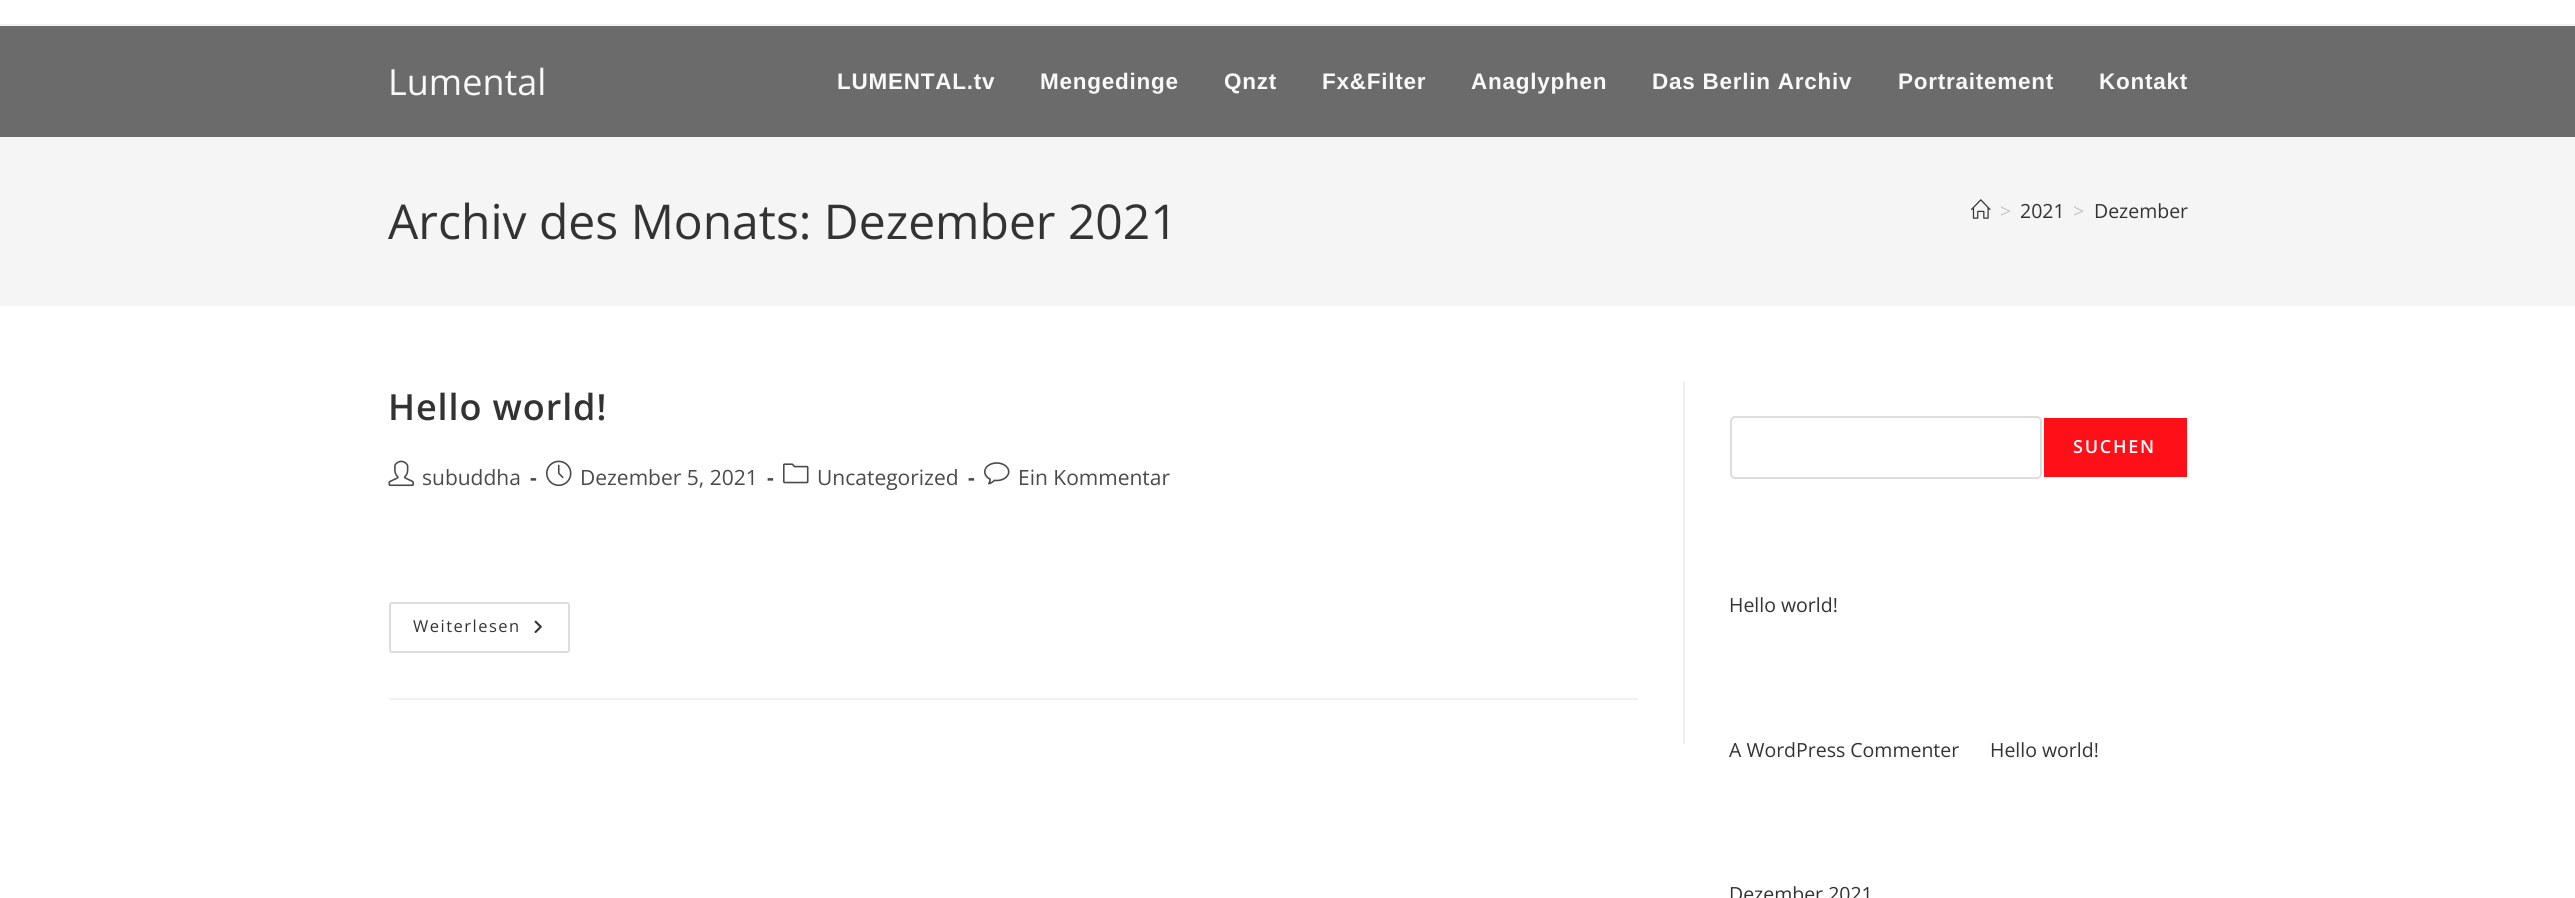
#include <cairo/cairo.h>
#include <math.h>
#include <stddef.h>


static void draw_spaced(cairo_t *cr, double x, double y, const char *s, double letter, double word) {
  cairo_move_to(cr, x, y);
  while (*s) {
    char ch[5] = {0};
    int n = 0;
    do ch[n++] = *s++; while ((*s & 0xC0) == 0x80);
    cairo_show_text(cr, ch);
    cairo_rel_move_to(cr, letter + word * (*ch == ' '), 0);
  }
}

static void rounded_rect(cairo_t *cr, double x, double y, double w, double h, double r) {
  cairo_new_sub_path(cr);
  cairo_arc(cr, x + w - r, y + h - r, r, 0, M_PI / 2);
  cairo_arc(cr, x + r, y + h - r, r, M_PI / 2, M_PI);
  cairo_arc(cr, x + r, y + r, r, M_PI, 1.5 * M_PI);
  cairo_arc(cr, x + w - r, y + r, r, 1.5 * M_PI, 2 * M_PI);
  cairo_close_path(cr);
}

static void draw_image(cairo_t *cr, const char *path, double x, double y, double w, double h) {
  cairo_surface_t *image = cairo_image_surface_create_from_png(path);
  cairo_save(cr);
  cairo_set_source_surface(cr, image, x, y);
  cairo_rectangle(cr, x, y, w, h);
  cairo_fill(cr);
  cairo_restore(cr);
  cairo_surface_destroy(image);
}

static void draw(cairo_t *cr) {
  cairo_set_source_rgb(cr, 1, 1, 1);
  cairo_paint(cr);
  cairo_set_source_rgb(cr, 241 / 255.0, 241 / 255.0, 241 / 255.0);
  cairo_rectangle(cr, 0, 24, 2575, 2);
  cairo_fill(cr);
  cairo_set_source_rgb(cr, 107 / 255.0, 107 / 255.0, 107 / 255.0);
  cairo_rectangle(cr, 0, 26, 2575, 111);
  cairo_fill(cr);
  cairo_set_source_rgb(cr, 245 / 255.0, 245 / 255.0, 245 / 255.0);
  cairo_rectangle(cr, 0, 137, 2575, 169);
  cairo_fill(cr);
  draw_image(cr, "images/1.png", 1971, 199, 20, 20);
  cairo_set_source_rgb(cr, 241 / 255.0, 241 / 255.0, 241 / 255.0);
  cairo_rectangle(cr, 1683, 381, 2, 363);
  cairo_fill(cr);
  cairo_rectangle(cr, 389, 698, 1249, 2);
  cairo_fill(cr);
  draw_image(cr, "images/2.png", 388, 460, 26, 27);
  draw_image(cr, "images/3.png", 546, 460, 26, 27);
  draw_image(cr, "images/4.png", 783, 463, 26, 21);
  draw_image(cr, "images/5.png", 984, 462, 26, 23);
  rounded_rect(cr, 390, 603, 179, 49, 2);
  cairo_set_source_rgb(cr, 221 / 255.0, 221 / 255.0, 221 / 255.0);
  cairo_stroke(cr);
  draw_image(cr, "images/6.png", 534, 620, 8, 13);
  rounded_rect(cr, 1731, 417, 310, 61, 4);
  cairo_stroke(cr);
  cairo_set_source_rgb(cr, 1, 15 / 255.0, 23 / 255.0);
  cairo_rectangle(cr, 2044, 418, 143, 59);
  cairo_fill(cr);
  cairo_select_font_face(cr, "Open Sans", CAIRO_FONT_SLANT_NORMAL, CAIRO_FONT_WEIGHT_NORMAL);
  cairo_set_font_size(cr, 36);
  cairo_set_source_rgb(cr, 249 / 255.0, 249 / 255.0, 249 / 255.0);
  cairo_move_to(cr, 388, 95);
  cairo_show_text(cr, "Lumental");
  cairo_select_font_face(cr, "Liberation Sans", CAIRO_FONT_SLANT_NORMAL, CAIRO_FONT_WEIGHT_BOLD);
  cairo_set_font_size(cr, 22.5);
  draw_spaced(cr, 837, 89, "LUMENTAL.tv", 0.75, 0);
  draw_spaced(cr, 1040, 89, "Mengedinge", 0.75, 0);
  draw_spaced(cr, 1224, 89, "Qnzt", 0.75, 0);
  draw_spaced(cr, 1322, 89, "Fx&Filter", 0.75, 0);
  draw_spaced(cr, 1471, 89, "Anaglyphen", 0.75, 0);
  draw_spaced(cr, 1652, 89, "Das Berlin Archiv", 0.75, 0);
  draw_spaced(cr, 1898, 89, "Portraitement", 0.75, 0);
  draw_spaced(cr, 2099, 89, "Kontakt", 0.75, 0);
  cairo_select_font_face(cr, "Open Sans", CAIRO_FONT_SLANT_NORMAL, CAIRO_FONT_WEIGHT_NORMAL);
  cairo_set_font_size(cr, 48);
  cairo_set_source_rgb(cr, 51 / 255.0, 51 / 255.0, 51 / 255.0);
  cairo_move_to(cr, 388, 239);
  cairo_show_text(cr, "Archiv des Monats: Dezember 2021");
  cairo_set_font_size(cr, 19.5);
  cairo_set_source_rgb(cr, 198 / 255.0, 198 / 255.0, 198 / 255.0);
  cairo_move_to(cr, 2000, 218);
  cairo_show_text(cr, ">");
  cairo_set_source_rgb(cr, 51 / 255.0, 51 / 255.0, 51 / 255.0);
  cairo_move_to(cr, 2020, 218);
  cairo_show_text(cr, "2021");
  cairo_set_source_rgb(cr, 198 / 255.0, 198 / 255.0, 198 / 255.0);
  cairo_move_to(cr, 2073, 218);
  cairo_show_text(cr, ">");
  cairo_set_source_rgb(cr, 51 / 255.0, 51 / 255.0, 51 / 255.0);
  cairo_move_to(cr, 2094, 218);
  cairo_show_text(cr, "Dezember");
  cairo_select_font_face(cr, "Open Sans SemiBold", CAIRO_FONT_SLANT_NORMAL, CAIRO_FONT_WEIGHT_NORMAL);
  cairo_set_font_size(cr, 36);
  draw_spaced(cr, 388, 420, "Hello world!", 0.9, 0);
  cairo_select_font_face(cr, "Open Sans", CAIRO_FONT_SLANT_NORMAL, CAIRO_FONT_WEIGHT_NORMAL);
  cairo_set_font_size(cr, 21);
  cairo_set_source_rgb(cr, 74 / 255.0, 74 / 255.0, 74 / 255.0);
  cairo_move_to(cr, 422, 485);
  cairo_show_text(cr, "subuddha");
  cairo_select_font_face(cr, "Open Sans", CAIRO_FONT_SLANT_NORMAL, CAIRO_FONT_WEIGHT_BOLD);
  cairo_move_to(cr, 530, 485);
  cairo_show_text(cr, "-");
  cairo_select_font_face(cr, "Open Sans", CAIRO_FONT_SLANT_NORMAL, CAIRO_FONT_WEIGHT_NORMAL);
  cairo_move_to(cr, 580, 485);
  cairo_show_text(cr, "Dezember 5, 2021");
  cairo_select_font_face(cr, "Open Sans", CAIRO_FONT_SLANT_NORMAL, CAIRO_FONT_WEIGHT_BOLD);
  cairo_move_to(cr, 767, 485);
  cairo_show_text(cr, "-");
  cairo_select_font_face(cr, "Open Sans", CAIRO_FONT_SLANT_NORMAL, CAIRO_FONT_WEIGHT_NORMAL);
  cairo_move_to(cr, 817, 485);
  cairo_show_text(cr, "Uncategorized");
  cairo_select_font_face(cr, "Open Sans", CAIRO_FONT_SLANT_NORMAL, CAIRO_FONT_WEIGHT_BOLD);
  cairo_move_to(cr, 968, 485);
  cairo_show_text(cr, "-");
  cairo_select_font_face(cr, "Open Sans", CAIRO_FONT_SLANT_NORMAL, CAIRO_FONT_WEIGHT_NORMAL);
  cairo_move_to(cr, 1018, 485);
  cairo_show_text(cr, "Ein Kommentar");
  cairo_set_font_size(cr, 16.5);
  cairo_set_source_rgb(cr, 51 / 255.0, 51 / 255.0, 51 / 255.0);
  draw_spaced(cr, 413, 632, "Weiterlesen", 1.5, 0);
  cairo_select_font_face(cr, "Open Sans SemiBold", CAIRO_FONT_SLANT_NORMAL, CAIRO_FONT_WEIGHT_NORMAL);
  cairo_set_font_size(cr, 18);
  cairo_set_source_rgb(cr, 1, 1, 1);
  draw_spaced(cr, 2073, 453, "SUCHEN", 1.75, 0);
  cairo_select_font_face(cr, "Open Sans", CAIRO_FONT_SLANT_NORMAL, CAIRO_FONT_WEIGHT_NORMAL);
  cairo_set_font_size(cr, 19.5);
  cairo_set_source_rgb(cr, 51 / 255.0, 51 / 255.0, 51 / 255.0);
  cairo_move_to(cr, 1729, 612);
  cairo_show_text(cr, "Hello world!");
  cairo_move_to(cr, 1729, 757);
  cairo_show_text(cr, "A WordPress Commenter");
  cairo_move_to(cr, 1990, 757);
  cairo_show_text(cr, "Hello world!");
  cairo_move_to(cr, 1729, 901);
  cairo_show_text(cr, "Dezember 2021");
}

int main(void) {
  cairo_surface_t *surface = cairo_image_surface_create(CAIRO_FORMAT_RGB24, 2575, 898);
  cairo_t *cr = cairo_create(surface);
  cairo_font_options_t *options = cairo_font_options_create();
  cairo_font_options_set_hint_metrics(options, CAIRO_HINT_METRICS_OFF);
  cairo_font_options_set_hint_style(options, CAIRO_HINT_STYLE_NONE);
  cairo_set_font_options(cr, options);
  cairo_set_miter_limit(cr, 4);
  draw(cr);
  cairo_surface_write_to_png(surface, "out.png");
  cairo_font_options_destroy(options);
  cairo_destroy(cr);
  cairo_surface_destroy(surface);
  return 0;
}
